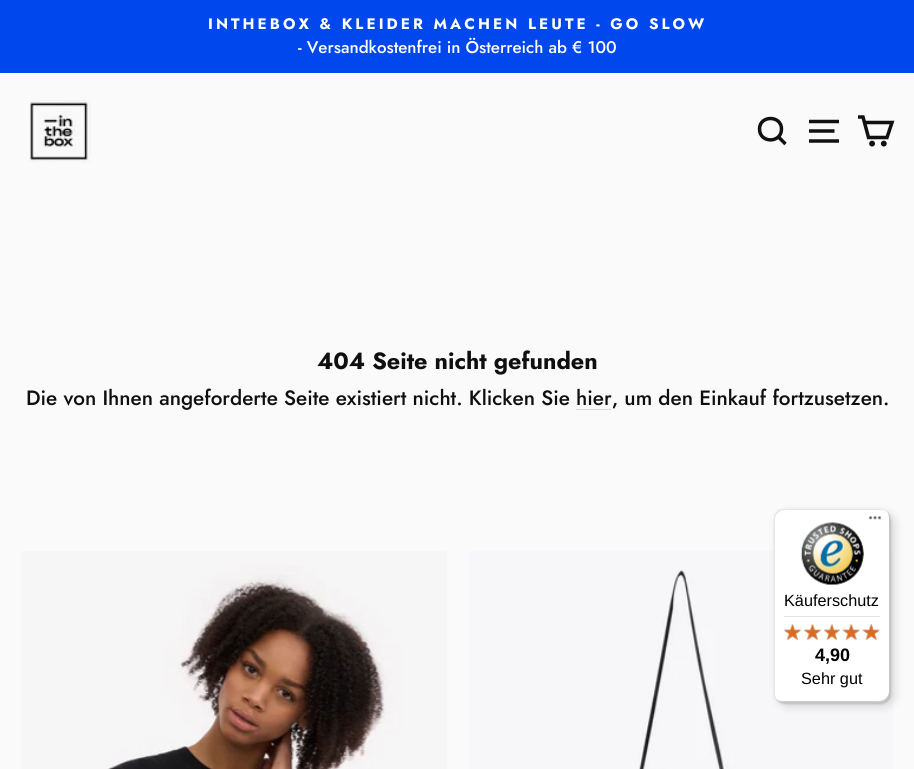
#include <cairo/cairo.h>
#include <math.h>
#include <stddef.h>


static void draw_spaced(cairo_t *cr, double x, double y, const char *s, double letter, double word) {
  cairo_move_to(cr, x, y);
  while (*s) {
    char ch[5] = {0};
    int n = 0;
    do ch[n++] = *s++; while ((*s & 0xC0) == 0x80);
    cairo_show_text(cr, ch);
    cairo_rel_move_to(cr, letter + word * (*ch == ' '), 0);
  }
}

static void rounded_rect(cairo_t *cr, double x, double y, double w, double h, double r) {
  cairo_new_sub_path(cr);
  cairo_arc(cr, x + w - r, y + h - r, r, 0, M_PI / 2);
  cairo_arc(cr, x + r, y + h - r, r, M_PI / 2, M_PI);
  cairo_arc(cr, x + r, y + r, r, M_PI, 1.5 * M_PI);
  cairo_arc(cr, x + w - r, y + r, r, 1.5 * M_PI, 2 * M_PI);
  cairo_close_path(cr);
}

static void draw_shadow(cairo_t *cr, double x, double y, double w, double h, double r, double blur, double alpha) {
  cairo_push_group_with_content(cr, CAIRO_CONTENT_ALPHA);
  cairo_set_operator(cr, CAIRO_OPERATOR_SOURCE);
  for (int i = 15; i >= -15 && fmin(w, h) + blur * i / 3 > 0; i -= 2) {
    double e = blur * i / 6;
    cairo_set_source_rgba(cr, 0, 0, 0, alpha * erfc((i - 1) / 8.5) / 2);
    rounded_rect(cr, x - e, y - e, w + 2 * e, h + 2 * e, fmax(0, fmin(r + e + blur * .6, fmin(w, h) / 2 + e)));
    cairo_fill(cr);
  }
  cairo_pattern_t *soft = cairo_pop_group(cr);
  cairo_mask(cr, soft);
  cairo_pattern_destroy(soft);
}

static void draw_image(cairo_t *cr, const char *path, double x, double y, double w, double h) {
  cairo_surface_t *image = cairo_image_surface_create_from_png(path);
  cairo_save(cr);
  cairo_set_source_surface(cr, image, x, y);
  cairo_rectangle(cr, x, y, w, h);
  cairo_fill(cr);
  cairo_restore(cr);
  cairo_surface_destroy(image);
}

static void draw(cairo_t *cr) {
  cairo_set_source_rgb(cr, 250 / 255.0, 250 / 255.0, 250 / 255.0);
  cairo_paint(cr);
  cairo_set_source_rgb(cr, 0, 71 / 255.0, 237 / 255.0);
  cairo_rectangle(cr, 0, 0, 914, 73);
  cairo_fill(cr);
  draw_image(cr, "images/1.png", 29, 100, 62, 63);
  cairo_new_path(cr);
  cairo_move_to(cr, 781.5, 129);
  cairo_curve_to(cr, 781.5, 143.5, 759.5, 143.5, 759.5, 129);
  cairo_curve_to(cr, 759.5, 115, 781.5, 115, 781.5, 129);
  cairo_close_path(cr);
  cairo_move_to(cr, 785.5, 144);
  cairo_line_to(cr, 778.5, 137);
  cairo_set_source_rgb(cr, 17 / 255.0, 17 / 255.0, 17 / 255.0);
  cairo_set_line_width(cr, 3.5);
  cairo_stroke(cr);
  cairo_new_path(cr);
  cairo_move_to(cr, 809, 121.5);
  cairo_line_to(cr, 839, 121.5);
  cairo_move_to(cr, 809, 131);
  cairo_line_to(cr, 834.5, 131);
  cairo_move_to(cr, 809, 141);
  cairo_line_to(cr, 839, 141);
  cairo_stroke(cr);
  cairo_new_path(cr);
  cairo_move_to(cr, 864.5, 122.5);
  cairo_line_to(cr, 892, 122.5);
  cairo_line_to(cr, 887, 137.5);
  cairo_line_to(cr, 868.5, 137.5);
  cairo_line_to(cr, 863, 117);
  cairo_line_to(cr, 858, 117);
  cairo_stroke(cr);
  cairo_arc(cr, 872.1, 143.6, 1.2, 0, 2 * M_PI);
  cairo_fill_preserve(cr);
  cairo_stroke(cr);
  cairo_arc(cr, 883.8, 143.6, 1.2, 0, 2 * M_PI);
  cairo_fill_preserve(cr);
  cairo_stroke(cr);
  draw_image(cr, "images/2.png", 21, 551, 426, 218);
  draw_image(cr, "images/3.png", 469, 551, 424, 218);
  cairo_set_source_rgb(cr, 0, 0, 0);
  draw_shadow(cr, 778, 513, 116, 193, 10, 5, 0.15);
  draw_shadow(cr, 775, 510, 116, 194, 10, 1, 0.15);
  cairo_set_source_rgb(cr, 1, 1, 1);
  rounded_rect(cr, 774, 509, 116, 194, 10);
  cairo_fill(cr);
  cairo_set_source_rgba(cr, 0, 0, 0, 0.1);
  cairo_new_path(cr);
  cairo_move_to(cr, 785, 510);
  cairo_line_to(cr, 881, 510);
  cairo_curve_to(cr, 883, 510, 885, 510, 886, 511);
  cairo_curve_to(cr, 885, 510, 882, 509, 880, 509);
  cairo_line_to(cr, 784, 509);
  cairo_curve_to(cr, 778, 509, 774, 513, 774, 519);
  cairo_line_to(cr, 774, 693);
  cairo_curve_to(cr, 774, 696, 775, 699, 778, 701);
  cairo_curve_to(cr, 776, 699, 775, 696, 775, 694);
  cairo_line_to(cr, 775, 520);
  cairo_curve_to(cr, 775, 514, 779, 510, 785, 510);
  cairo_close_path(cr);
  cairo_fill(cr);
  cairo_set_source_rgba(cr, 0, 0, 0, 0.2);
  cairo_new_path(cr);
  cairo_move_to(cr, 776, 699);
  cairo_curve_to(cr, 778, 701, 781, 703, 784, 703);
  cairo_line_to(cr, 880, 703);
  cairo_curve_to(cr, 886, 703, 890, 699, 890, 693);
  cairo_line_to(cr, 890, 519);
  cairo_curve_to(cr, 890, 516, 889, 513, 887, 511);
  cairo_curve_to(cr, 888, 513, 889, 515, 889, 518);
  cairo_line_to(cr, 889, 691);
  cairo_curve_to(cr, 889, 697, 884, 701, 879, 701);
  cairo_line_to(cr, 782, 701);
  cairo_curve_to(cr, 780, 701, 778, 700, 776, 699);
  cairo_close_path(cr);
  cairo_fill(cr);
  cairo_set_source_rgba(cr, 50 / 255.0, 50 / 255.0, 50 / 255.0, 0.2);
  cairo_new_path(cr);
  cairo_move_to(cr, 776, 700);
  cairo_curve_to(cr, 778, 702, 781, 703, 784, 703);
  cairo_line_to(cr, 880, 703);
  cairo_curve_to(cr, 886, 703, 890, 699, 890, 693);
  cairo_line_to(cr, 890, 519);
  cairo_curve_to(cr, 890, 517, 889, 514, 888, 513);
  cairo_curve_to(cr, 889, 514, 889, 516, 889, 518);
  cairo_line_to(cr, 889, 692);
  cairo_curve_to(cr, 889, 697, 885, 702, 879, 702);
  cairo_line_to(cr, 783, 702);
  cairo_curve_to(cr, 780, 702, 778, 701, 776, 700);
  cairo_close_path(cr);
  cairo_fill(cr);
  cairo_set_source_rgba(cr, 1, 1, 1, 0.3);
  cairo_new_path(cr);
  cairo_move_to(cr, 775, 698);
  cairo_curve_to(cr, 777, 701, 780, 703, 784, 703);
  cairo_line_to(cr, 880, 703);
  cairo_curve_to(cr, 886, 703, 890, 699, 890, 693);
  cairo_line_to(cr, 890, 519);
  cairo_curve_to(cr, 890, 516, 889, 513, 886, 511);
  cairo_curve_to(cr, 888, 513, 889, 516, 889, 518);
  cairo_line_to(cr, 889, 692);
  cairo_curve_to(cr, 889, 697, 885, 702, 879, 702);
  cairo_line_to(cr, 783, 702);
  cairo_curve_to(cr, 780, 702, 777, 700, 775, 698);
  cairo_close_path(cr);
  cairo_fill(cr);
  draw_image(cr, "images/4.png", 868, 516, 13, 4);
  draw_image(cr, "images/5.png", 801, 522, 63, 63);
  cairo_set_source_rgb(cr, 229 / 255.0, 229 / 255.0, 229 / 255.0);
  cairo_rectangle(cr, 784, 616, 96, 1);
  cairo_fill(cr);
  draw_image(cr, "images/11.png", 784, 624, 17, 16);
  draw_image(cr, "images/6.png", 783, 623, 18, 17);
  draw_image(cr, "images/12.png", 804, 624, 17, 16);
  draw_image(cr, "images/7.png", 803, 623, 19, 17);
  draw_image(cr, "images/13.png", 824, 624, 16, 16);
  draw_image(cr, "images/8.png", 823, 623, 17, 17);
  draw_image(cr, "images/14.png", 842, 624, 18, 16);
  draw_image(cr, "images/9.png", 842, 623, 18, 17);
  draw_image(cr, "images/15.png", 862, 624, 18, 16);
  draw_image(cr, "images/10.png", 862, 623, 17, 17);
  cairo_select_font_face(cr, "Jost", CAIRO_FONT_SLANT_NORMAL, CAIRO_FONT_WEIGHT_BOLD);
  cairo_set_font_size(cr, 15.2);
  cairo_set_source_rgb(cr, 1, 1, 1);
  draw_spaced(cr, 208, 29, "INTHEBOX & KLEIDER MACHEN LEUTE - GO SLOW", 3.05, 0);
  cairo_select_font_face(cr, "Jost Medium", CAIRO_FONT_SLANT_NORMAL, CAIRO_FONT_WEIGHT_NORMAL);
  cairo_set_font_size(cr, 16.9);
  cairo_move_to(cr, 298, 53);
  cairo_show_text(cr, "- Versandkostenfrei in Österreich ab € 100");
  cairo_select_font_face(cr, "Jost", CAIRO_FONT_SLANT_NORMAL, CAIRO_FONT_WEIGHT_BOLD);
  cairo_set_font_size(cr, 23.4);
  cairo_set_source_rgb(cr, 15 / 255.0, 15 / 255.0, 15 / 255.0);
  cairo_move_to(cr, 317, 369);
  cairo_show_text(cr, "404 Seite nicht gefunden");
  cairo_select_font_face(cr, "Jost Medium", CAIRO_FONT_SLANT_NORMAL, CAIRO_FONT_WEIGHT_NORMAL);
  cairo_set_font_size(cr, 20.7);
  cairo_move_to(cr, 26, 405);
  cairo_show_text(cr, "Die von Ihnen angeforderte Seite existiert nicht. Klicken Sie hier, um den Einkauf fortzusetzen.");
  cairo_set_source_rgb(cr, 215 / 255.0, 215 / 255.0, 215 / 255.0);
  cairo_rectangle(cr, 576, 409, 35, 1);
  cairo_fill(cr);
  cairo_select_font_face(cr, "Liberation Sans", CAIRO_FONT_SLANT_NORMAL, CAIRO_FONT_WEIGHT_NORMAL);
  cairo_set_font_size(cr, 16.25);
  cairo_set_source_rgb(cr, 0, 0, 0);
  cairo_move_to(cr, 784, 606);
  cairo_show_text(cr, "Käuferschutz");
  cairo_select_font_face(cr, "Liberation Sans", CAIRO_FONT_SLANT_NORMAL, CAIRO_FONT_WEIGHT_BOLD);
  cairo_set_font_size(cr, 18);
  cairo_move_to(cr, 815, 661);
  cairo_show_text(cr, "4,90");
  cairo_select_font_face(cr, "Liberation Sans", CAIRO_FONT_SLANT_NORMAL, CAIRO_FONT_WEIGHT_NORMAL);
  cairo_set_font_size(cr, 16.25);
  cairo_move_to(cr, 801, 684);
  cairo_show_text(cr, "Sehr gut");
}

int main(void) {
  cairo_surface_t *surface = cairo_image_surface_create(CAIRO_FORMAT_RGB24, 914, 769);
  cairo_t *cr = cairo_create(surface);
  cairo_font_options_t *options = cairo_font_options_create();
  cairo_font_options_set_hint_metrics(options, CAIRO_HINT_METRICS_OFF);
  cairo_font_options_set_hint_style(options, CAIRO_HINT_STYLE_NONE);
  cairo_set_font_options(cr, options);
  cairo_set_miter_limit(cr, 4);
  draw(cr);
  cairo_surface_write_to_png(surface, "out.png");
  cairo_font_options_destroy(options);
  cairo_destroy(cr);
  cairo_surface_destroy(surface);
  return 0;
}
